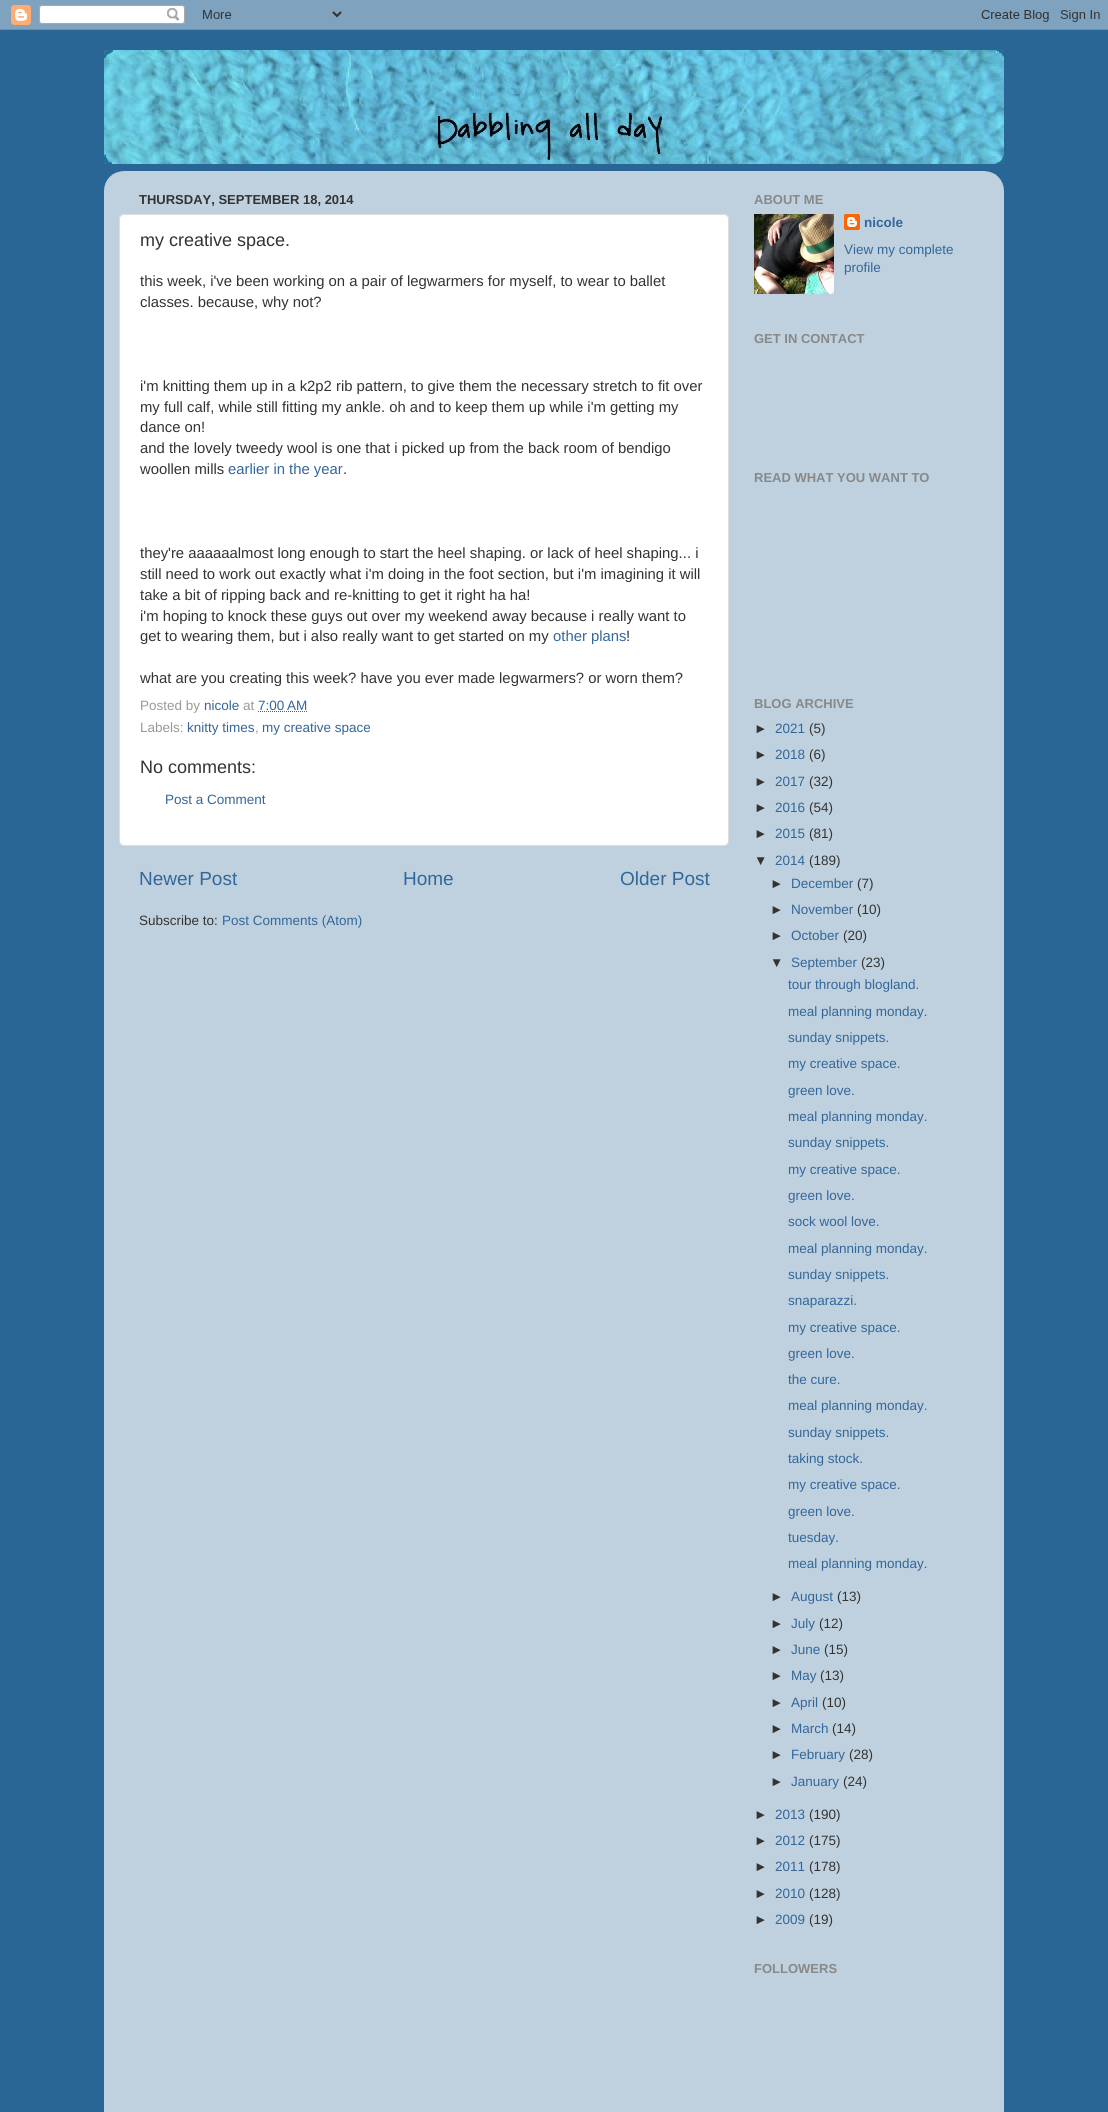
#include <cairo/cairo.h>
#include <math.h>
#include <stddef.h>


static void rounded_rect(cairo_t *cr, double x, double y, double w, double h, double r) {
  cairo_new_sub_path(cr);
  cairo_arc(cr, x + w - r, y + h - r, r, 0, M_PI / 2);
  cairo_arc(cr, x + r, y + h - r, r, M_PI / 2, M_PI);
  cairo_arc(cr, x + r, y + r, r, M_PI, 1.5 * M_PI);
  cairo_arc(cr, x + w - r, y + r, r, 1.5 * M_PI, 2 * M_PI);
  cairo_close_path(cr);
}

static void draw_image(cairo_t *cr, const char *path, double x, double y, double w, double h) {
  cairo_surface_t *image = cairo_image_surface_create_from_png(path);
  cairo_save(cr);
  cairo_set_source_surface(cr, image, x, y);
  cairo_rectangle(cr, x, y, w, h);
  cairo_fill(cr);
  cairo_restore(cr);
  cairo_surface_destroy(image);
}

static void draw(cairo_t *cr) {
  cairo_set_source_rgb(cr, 41 / 255.0, 102 / 255.0, 149 / 255.0);
  cairo_paint(cr);
  draw_image(cr, "images/1.png", 0, 0, 1108, 30);
  draw_image(cr, "images/2.png", 104, 50, 900, 114);
  draw_image(cr, "images/3.png", 104, 171, 900, 1941);
  cairo_set_source_rgb(cr, 1, 1, 1);
  rounded_rect(cr, 119.5, 214.5, 609, 631, 4.5);
  cairo_fill_preserve(cr);
  cairo_set_source_rgb(cr, 221 / 255.0, 221 / 255.0, 221 / 255.0);
  cairo_set_line_width(cr, 1);
  cairo_stroke(cr);
  cairo_new_path(cr);
  cairo_move_to(cr, 258, 711.5);
  cairo_line_to(cr, 307, 711.5);
  cairo_set_source_rgb(cr, 51 / 255.0, 102 / 255.0, 153 / 255.0);
  cairo_set_dash(cr, (double[]){1, 1}, 2, 0);
  cairo_stroke(cr);
  draw_image(cr, "images/4.png", 754, 214, 80, 80);
  draw_image(cr, "images/5.png", 844, 214, 16, 16);
  cairo_select_font_face(cr, "Liberation Sans", CAIRO_FONT_SLANT_NORMAL, CAIRO_FONT_WEIGHT_BOLD);
  cairo_set_font_size(cr, 13);
  cairo_set_source_rgb(cr, 51 / 255.0, 51 / 255.0, 51 / 255.0);
  cairo_move_to(cr, 139, 204);
  cairo_show_text(cr, "THURSDAY, SEPTEMBER 18, 2014");
  cairo_select_font_face(cr, "Liberation Sans", CAIRO_FONT_SLANT_NORMAL, CAIRO_FONT_WEIGHT_NORMAL);
  cairo_set_font_size(cr, 18);
  cairo_move_to(cr, 140, 246);
  cairo_show_text(cr, "my creative space.");
  cairo_set_font_size(cr, 14.85);
  cairo_move_to(cr, 140, 286);
  cairo_show_text(cr, "this week, i've been working on a pair of legwarmers for myself, to wear to ballet");
  cairo_move_to(cr, 140, 307);
  cairo_show_text(cr, "classes. because, why not?");
  cairo_move_to(cr, 140, 391);
  cairo_show_text(cr, "i'm knitting them up in a k2p2 rib pattern, to give them the necessary stretch to fit over");
  cairo_move_to(cr, 140, 412);
  cairo_show_text(cr, "my full calf, while still fitting my ankle. oh and to keep them up while i'm getting my");
  cairo_move_to(cr, 140, 432);
  cairo_show_text(cr, "dance on!");
  cairo_move_to(cr, 140, 453);
  cairo_show_text(cr, "and the lovely tweedy wool is one that i picked up from the back room of bendigo");
  cairo_move_to(cr, 140, 474);
  cairo_show_text(cr, "woollen mills");
  cairo_set_source_rgb(cr, 51 / 255.0, 102 / 255.0, 153 / 255.0);
  cairo_move_to(cr, 228, 474);
  cairo_show_text(cr, "earlier in the year");
  cairo_set_source_rgb(cr, 51 / 255.0, 51 / 255.0, 51 / 255.0);
  cairo_move_to(cr, 343, 474);
  cairo_show_text(cr, ".");
  cairo_move_to(cr, 140, 558);
  cairo_show_text(cr, "they're aaaaaalmost long enough to start the heel shaping. or lack of heel shaping... i");
  cairo_move_to(cr, 140, 579);
  cairo_show_text(cr, "still need to work out exactly what i'm doing in the foot section, but i'm imagining it will");
  cairo_move_to(cr, 140, 600);
  cairo_show_text(cr, "take a bit of ripping back and re-knitting to get it right ha ha!");
  cairo_move_to(cr, 140, 621);
  cairo_show_text(cr, "i'm hoping to knock these guys out over my weekend away because i really want to");
  cairo_move_to(cr, 140, 641);
  cairo_show_text(cr, "get to wearing them, but i also really want to get started on my");
  cairo_set_source_rgb(cr, 51 / 255.0, 102 / 255.0, 153 / 255.0);
  cairo_move_to(cr, 553, 641);
  cairo_show_text(cr, "other plans");
  cairo_set_source_rgb(cr, 51 / 255.0, 51 / 255.0, 51 / 255.0);
  cairo_move_to(cr, 626, 641);
  cairo_show_text(cr, "!");
  cairo_move_to(cr, 140, 683);
  cairo_show_text(cr, "what are you creating this week? have you ever made legwarmers? or worn them?");
  cairo_set_font_size(cr, 13.5);
  cairo_set_source_rgb(cr, 153 / 255.0, 153 / 255.0, 153 / 255.0);
  cairo_move_to(cr, 140, 710);
  cairo_show_text(cr, "Posted by");
  cairo_set_source_rgb(cr, 51 / 255.0, 102 / 255.0, 153 / 255.0);
  cairo_move_to(cr, 204, 710);
  cairo_show_text(cr, "nicole");
  cairo_set_source_rgb(cr, 153 / 255.0, 153 / 255.0, 153 / 255.0);
  cairo_move_to(cr, 243, 710);
  cairo_show_text(cr, "at");
  cairo_set_source_rgb(cr, 51 / 255.0, 102 / 255.0, 153 / 255.0);
  cairo_move_to(cr, 258, 710);
  cairo_show_text(cr, "7:00 AM");
  cairo_set_source_rgb(cr, 153 / 255.0, 153 / 255.0, 153 / 255.0);
  cairo_move_to(cr, 140, 732);
  cairo_show_text(cr, "Labels:");
  cairo_set_source_rgb(cr, 51 / 255.0, 102 / 255.0, 153 / 255.0);
  cairo_move_to(cr, 187, 732);
  cairo_show_text(cr, "knitty times");
  cairo_set_source_rgb(cr, 153 / 255.0, 153 / 255.0, 153 / 255.0);
  cairo_move_to(cr, 255, 732);
  cairo_show_text(cr, ",");
  cairo_set_source_rgb(cr, 51 / 255.0, 102 / 255.0, 153 / 255.0);
  cairo_move_to(cr, 262, 732);
  cairo_show_text(cr, "my creative space");
  cairo_set_font_size(cr, 18);
  cairo_set_source_rgb(cr, 51 / 255.0, 51 / 255.0, 51 / 255.0);
  cairo_move_to(cr, 140, 773);
  cairo_show_text(cr, "No comments:");
  cairo_set_font_size(cr, 13.5);
  cairo_set_source_rgb(cr, 51 / 255.0, 102 / 255.0, 153 / 255.0);
  cairo_move_to(cr, 165, 804);
  cairo_show_text(cr, "Post a Comment");
  cairo_set_font_size(cr, 19);
  cairo_move_to(cr, 139, 885);
  cairo_show_text(cr, "Newer Post");
  cairo_move_to(cr, 403, 885);
  cairo_show_text(cr, "Home");
  cairo_move_to(cr, 620, 885);
  cairo_show_text(cr, "Older Post");
  cairo_set_font_size(cr, 13.5);
  cairo_set_source_rgb(cr, 51 / 255.0, 51 / 255.0, 51 / 255.0);
  cairo_move_to(cr, 139, 925);
  cairo_show_text(cr, "Subscribe to:");
  cairo_set_source_rgb(cr, 51 / 255.0, 102 / 255.0, 153 / 255.0);
  cairo_move_to(cr, 222, 925);
  cairo_show_text(cr, "Post Comments (Atom)");
  cairo_select_font_face(cr, "Liberation Sans", CAIRO_FONT_SLANT_NORMAL, CAIRO_FONT_WEIGHT_BOLD);
  cairo_set_font_size(cr, 13);
  cairo_set_source_rgb(cr, 136 / 255.0, 136 / 255.0, 136 / 255.0);
  cairo_move_to(cr, 754, 204);
  cairo_show_text(cr, "ABOUT ME");
  cairo_set_font_size(cr, 13.5);
  cairo_set_source_rgb(cr, 51 / 255.0, 102 / 255.0, 153 / 255.0);
  cairo_move_to(cr, 864, 227);
  cairo_show_text(cr, "nicole");
  cairo_select_font_face(cr, "Liberation Sans", CAIRO_FONT_SLANT_NORMAL, CAIRO_FONT_WEIGHT_NORMAL);
  cairo_move_to(cr, 844, 254);
  cairo_show_text(cr, "View my complete");
  cairo_move_to(cr, 844, 272);
  cairo_show_text(cr, "profile");
  cairo_select_font_face(cr, "Liberation Sans", CAIRO_FONT_SLANT_NORMAL, CAIRO_FONT_WEIGHT_BOLD);
  cairo_set_font_size(cr, 13);
  cairo_set_source_rgb(cr, 136 / 255.0, 136 / 255.0, 136 / 255.0);
  cairo_move_to(cr, 754, 343);
  cairo_show_text(cr, "GET IN CONTACT");
  cairo_move_to(cr, 754, 482);
  cairo_show_text(cr, "READ WHAT YOU WANT TO");
  cairo_move_to(cr, 754, 708);
  cairo_show_text(cr, "BLOG ARCHIVE");
  cairo_select_font_face(cr, "Liberation Sans", CAIRO_FONT_SLANT_NORMAL, CAIRO_FONT_WEIGHT_NORMAL);
  cairo_set_font_size(cr, 13.5);
  cairo_set_source_rgb(cr, 51 / 255.0, 51 / 255.0, 51 / 255.0);
  cairo_move_to(cr, 754, 733);
  cairo_show_text(cr, "►");
  cairo_set_source_rgb(cr, 51 / 255.0, 102 / 255.0, 153 / 255.0);
  cairo_move_to(cr, 775, 733);
  cairo_show_text(cr, "2021");
  cairo_set_source_rgb(cr, 51 / 255.0, 51 / 255.0, 51 / 255.0);
  cairo_move_to(cr, 809, 733);
  cairo_show_text(cr, "(5)");
  cairo_move_to(cr, 754, 759);
  cairo_show_text(cr, "►");
  cairo_set_source_rgb(cr, 51 / 255.0, 102 / 255.0, 153 / 255.0);
  cairo_move_to(cr, 775, 759);
  cairo_show_text(cr, "2018");
  cairo_set_source_rgb(cr, 51 / 255.0, 51 / 255.0, 51 / 255.0);
  cairo_move_to(cr, 809, 759);
  cairo_show_text(cr, "(6)");
  cairo_move_to(cr, 754, 786);
  cairo_show_text(cr, "►");
  cairo_set_source_rgb(cr, 51 / 255.0, 102 / 255.0, 153 / 255.0);
  cairo_move_to(cr, 775, 786);
  cairo_show_text(cr, "2017");
  cairo_set_source_rgb(cr, 51 / 255.0, 51 / 255.0, 51 / 255.0);
  cairo_move_to(cr, 809, 786);
  cairo_show_text(cr, "(32)");
  cairo_move_to(cr, 754, 812);
  cairo_show_text(cr, "►");
  cairo_set_source_rgb(cr, 51 / 255.0, 102 / 255.0, 153 / 255.0);
  cairo_move_to(cr, 775, 812);
  cairo_show_text(cr, "2016");
  cairo_set_source_rgb(cr, 51 / 255.0, 51 / 255.0, 51 / 255.0);
  cairo_move_to(cr, 809, 812);
  cairo_show_text(cr, "(54)");
  cairo_move_to(cr, 754, 838);
  cairo_show_text(cr, "►");
  cairo_set_source_rgb(cr, 51 / 255.0, 102 / 255.0, 153 / 255.0);
  cairo_move_to(cr, 775, 838);
  cairo_show_text(cr, "2015");
  cairo_set_source_rgb(cr, 51 / 255.0, 51 / 255.0, 51 / 255.0);
  cairo_move_to(cr, 809, 838);
  cairo_show_text(cr, "(81)");
  cairo_move_to(cr, 754, 865);
  cairo_show_text(cr, "▼");
  cairo_set_source_rgb(cr, 51 / 255.0, 102 / 255.0, 153 / 255.0);
  cairo_move_to(cr, 775, 865);
  cairo_show_text(cr, "2014");
  cairo_set_source_rgb(cr, 51 / 255.0, 51 / 255.0, 51 / 255.0);
  cairo_move_to(cr, 809, 865);
  cairo_show_text(cr, "(189)");
  cairo_move_to(cr, 770, 888);
  cairo_show_text(cr, "►");
  cairo_set_source_rgb(cr, 51 / 255.0, 102 / 255.0, 153 / 255.0);
  cairo_move_to(cr, 791, 888);
  cairo_show_text(cr, "December");
  cairo_set_source_rgb(cr, 51 / 255.0, 51 / 255.0, 51 / 255.0);
  cairo_move_to(cr, 857, 888);
  cairo_show_text(cr, "(7)");
  cairo_move_to(cr, 770, 914);
  cairo_show_text(cr, "►");
  cairo_set_source_rgb(cr, 51 / 255.0, 102 / 255.0, 153 / 255.0);
  cairo_move_to(cr, 791, 914);
  cairo_show_text(cr, "November");
  cairo_set_source_rgb(cr, 51 / 255.0, 51 / 255.0, 51 / 255.0);
  cairo_move_to(cr, 857, 914);
  cairo_show_text(cr, "(10)");
  cairo_move_to(cr, 770, 940);
  cairo_show_text(cr, "►");
  cairo_set_source_rgb(cr, 51 / 255.0, 102 / 255.0, 153 / 255.0);
  cairo_move_to(cr, 791, 940);
  cairo_show_text(cr, "October");
  cairo_set_source_rgb(cr, 51 / 255.0, 51 / 255.0, 51 / 255.0);
  cairo_move_to(cr, 843, 940);
  cairo_show_text(cr, "(20)");
  cairo_move_to(cr, 770, 967);
  cairo_show_text(cr, "▼");
  cairo_set_source_rgb(cr, 51 / 255.0, 102 / 255.0, 153 / 255.0);
  cairo_move_to(cr, 791, 967);
  cairo_show_text(cr, "September");
  cairo_set_source_rgb(cr, 51 / 255.0, 51 / 255.0, 51 / 255.0);
  cairo_move_to(cr, 861, 967);
  cairo_show_text(cr, "(23)");
  cairo_set_source_rgb(cr, 51 / 255.0, 102 / 255.0, 153 / 255.0);
  cairo_move_to(cr, 788, 989);
  cairo_show_text(cr, "tour through blogland.");
  cairo_move_to(cr, 788, 1016);
  cairo_show_text(cr, "meal planning monday.");
  cairo_move_to(cr, 788, 1042);
  cairo_show_text(cr, "sunday snippets.");
  cairo_move_to(cr, 788, 1068);
  cairo_show_text(cr, "my creative space.");
  cairo_move_to(cr, 788, 1095);
  cairo_show_text(cr, "green love.");
  cairo_move_to(cr, 788, 1121);
  cairo_show_text(cr, "meal planning monday.");
  cairo_move_to(cr, 788, 1147);
  cairo_show_text(cr, "sunday snippets.");
  cairo_move_to(cr, 788, 1174);
  cairo_show_text(cr, "my creative space.");
  cairo_move_to(cr, 788, 1200);
  cairo_show_text(cr, "green love.");
  cairo_move_to(cr, 788, 1226);
  cairo_show_text(cr, "sock wool love.");
  cairo_move_to(cr, 788, 1253);
  cairo_show_text(cr, "meal planning monday.");
  cairo_move_to(cr, 788, 1279);
  cairo_show_text(cr, "sunday snippets.");
  cairo_move_to(cr, 788, 1305);
  cairo_show_text(cr, "snaparazzi.");
  cairo_move_to(cr, 788, 1332);
  cairo_show_text(cr, "my creative space.");
  cairo_move_to(cr, 788, 1358);
  cairo_show_text(cr, "green love.");
  cairo_move_to(cr, 788, 1384);
  cairo_show_text(cr, "the cure.");
  cairo_move_to(cr, 788, 1410);
  cairo_show_text(cr, "meal planning monday.");
  cairo_move_to(cr, 788, 1437);
  cairo_show_text(cr, "sunday snippets.");
  cairo_move_to(cr, 788, 1463);
  cairo_show_text(cr, "taking stock.");
  cairo_move_to(cr, 788, 1489);
  cairo_show_text(cr, "my creative space.");
  cairo_move_to(cr, 788, 1516);
  cairo_show_text(cr, "green love.");
  cairo_move_to(cr, 788, 1542);
  cairo_show_text(cr, "tuesday.");
  cairo_move_to(cr, 788, 1568);
  cairo_show_text(cr, "meal planning monday.");
  cairo_set_source_rgb(cr, 51 / 255.0, 51 / 255.0, 51 / 255.0);
  cairo_move_to(cr, 770, 1601);
  cairo_show_text(cr, "►");
  cairo_set_source_rgb(cr, 51 / 255.0, 102 / 255.0, 153 / 255.0);
  cairo_move_to(cr, 791, 1601);
  cairo_show_text(cr, "August");
  cairo_set_source_rgb(cr, 51 / 255.0, 51 / 255.0, 51 / 255.0);
  cairo_move_to(cr, 837, 1601);
  cairo_show_text(cr, "(13)");
  cairo_move_to(cr, 770, 1628);
  cairo_show_text(cr, "►");
  cairo_set_source_rgb(cr, 51 / 255.0, 102 / 255.0, 153 / 255.0);
  cairo_move_to(cr, 791, 1628);
  cairo_show_text(cr, "July");
  cairo_set_source_rgb(cr, 51 / 255.0, 51 / 255.0, 51 / 255.0);
  cairo_move_to(cr, 819, 1628);
  cairo_show_text(cr, "(12)");
  cairo_move_to(cr, 770, 1654);
  cairo_show_text(cr, "►");
  cairo_set_source_rgb(cr, 51 / 255.0, 102 / 255.0, 153 / 255.0);
  cairo_move_to(cr, 791, 1654);
  cairo_show_text(cr, "June");
  cairo_set_source_rgb(cr, 51 / 255.0, 51 / 255.0, 51 / 255.0);
  cairo_move_to(cr, 824, 1654);
  cairo_show_text(cr, "(15)");
  cairo_move_to(cr, 770, 1680);
  cairo_show_text(cr, "►");
  cairo_set_source_rgb(cr, 51 / 255.0, 102 / 255.0, 153 / 255.0);
  cairo_move_to(cr, 791, 1680);
  cairo_show_text(cr, "May");
  cairo_set_source_rgb(cr, 51 / 255.0, 51 / 255.0, 51 / 255.0);
  cairo_move_to(cr, 820, 1680);
  cairo_show_text(cr, "(13)");
  cairo_move_to(cr, 770, 1707);
  cairo_show_text(cr, "►");
  cairo_set_source_rgb(cr, 51 / 255.0, 102 / 255.0, 153 / 255.0);
  cairo_move_to(cr, 791, 1707);
  cairo_show_text(cr, "April");
  cairo_set_source_rgb(cr, 51 / 255.0, 51 / 255.0, 51 / 255.0);
  cairo_move_to(cr, 822, 1707);
  cairo_show_text(cr, "(10)");
  cairo_move_to(cr, 770, 1733);
  cairo_show_text(cr, "►");
  cairo_set_source_rgb(cr, 51 / 255.0, 102 / 255.0, 153 / 255.0);
  cairo_move_to(cr, 791, 1733);
  cairo_show_text(cr, "March");
  cairo_set_source_rgb(cr, 51 / 255.0, 51 / 255.0, 51 / 255.0);
  cairo_move_to(cr, 832, 1733);
  cairo_show_text(cr, "(14)");
  cairo_move_to(cr, 770, 1759);
  cairo_show_text(cr, "►");
  cairo_set_source_rgb(cr, 51 / 255.0, 102 / 255.0, 153 / 255.0);
  cairo_move_to(cr, 791, 1759);
  cairo_show_text(cr, "February");
  cairo_set_source_rgb(cr, 51 / 255.0, 51 / 255.0, 51 / 255.0);
  cairo_move_to(cr, 849, 1759);
  cairo_show_text(cr, "(28)");
  cairo_move_to(cr, 770, 1786);
  cairo_show_text(cr, "►");
  cairo_set_source_rgb(cr, 51 / 255.0, 102 / 255.0, 153 / 255.0);
  cairo_move_to(cr, 791, 1786);
  cairo_show_text(cr, "January");
  cairo_set_source_rgb(cr, 51 / 255.0, 51 / 255.0, 51 / 255.0);
  cairo_move_to(cr, 843, 1786);
  cairo_show_text(cr, "(24)");
  cairo_move_to(cr, 754, 1819);
  cairo_show_text(cr, "►");
  cairo_set_source_rgb(cr, 51 / 255.0, 102 / 255.0, 153 / 255.0);
  cairo_move_to(cr, 775, 1819);
  cairo_show_text(cr, "2013");
  cairo_set_source_rgb(cr, 51 / 255.0, 51 / 255.0, 51 / 255.0);
  cairo_move_to(cr, 809, 1819);
  cairo_show_text(cr, "(190)");
  cairo_move_to(cr, 754, 1845);
  cairo_show_text(cr, "►");
  cairo_set_source_rgb(cr, 51 / 255.0, 102 / 255.0, 153 / 255.0);
  cairo_move_to(cr, 775, 1845);
  cairo_show_text(cr, "2012");
  cairo_set_source_rgb(cr, 51 / 255.0, 51 / 255.0, 51 / 255.0);
  cairo_move_to(cr, 809, 1845);
  cairo_show_text(cr, "(175)");
  cairo_move_to(cr, 754, 1871);
  cairo_show_text(cr, "►");
  cairo_set_source_rgb(cr, 51 / 255.0, 102 / 255.0, 153 / 255.0);
  cairo_move_to(cr, 775, 1871);
  cairo_show_text(cr, "2011");
  cairo_set_source_rgb(cr, 51 / 255.0, 51 / 255.0, 51 / 255.0);
  cairo_move_to(cr, 809, 1871);
  cairo_show_text(cr, "(178)");
  cairo_move_to(cr, 754, 1898);
  cairo_show_text(cr, "►");
  cairo_set_source_rgb(cr, 51 / 255.0, 102 / 255.0, 153 / 255.0);
  cairo_move_to(cr, 775, 1898);
  cairo_show_text(cr, "2010");
  cairo_set_source_rgb(cr, 51 / 255.0, 51 / 255.0, 51 / 255.0);
  cairo_move_to(cr, 809, 1898);
  cairo_show_text(cr, "(128)");
  cairo_move_to(cr, 754, 1924);
  cairo_show_text(cr, "►");
  cairo_set_source_rgb(cr, 51 / 255.0, 102 / 255.0, 153 / 255.0);
  cairo_move_to(cr, 775, 1924);
  cairo_show_text(cr, "2009");
  cairo_set_source_rgb(cr, 51 / 255.0, 51 / 255.0, 51 / 255.0);
  cairo_move_to(cr, 809, 1924);
  cairo_show_text(cr, "(19)");
  cairo_select_font_face(cr, "Liberation Sans", CAIRO_FONT_SLANT_NORMAL, CAIRO_FONT_WEIGHT_BOLD);
  cairo_set_font_size(cr, 13);
  cairo_set_source_rgb(cr, 136 / 255.0, 136 / 255.0, 136 / 255.0);
  cairo_move_to(cr, 754, 1973);
  cairo_show_text(cr, "FOLLOWERS");
}

int main(void) {
  cairo_surface_t *surface = cairo_image_surface_create(CAIRO_FORMAT_RGB24, 1108, 2112);
  cairo_t *cr = cairo_create(surface);
  cairo_font_options_t *options = cairo_font_options_create();
  cairo_font_options_set_hint_metrics(options, CAIRO_HINT_METRICS_OFF);
  cairo_font_options_set_hint_style(options, CAIRO_HINT_STYLE_NONE);
  cairo_set_font_options(cr, options);
  cairo_set_miter_limit(cr, 4);
  draw(cr);
  cairo_surface_write_to_png(surface, "out.png");
  cairo_font_options_destroy(options);
  cairo_destroy(cr);
  cairo_surface_destroy(surface);
  return 0;
}
